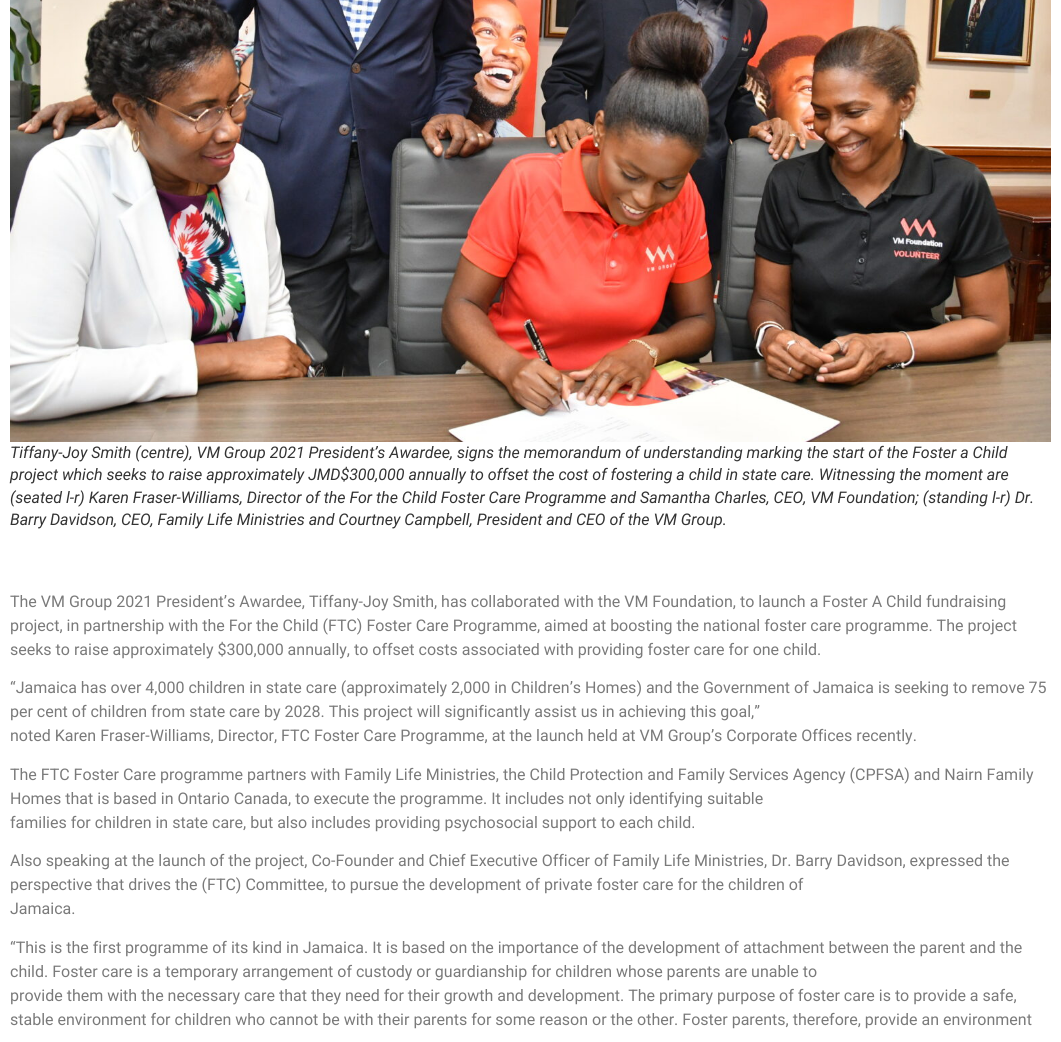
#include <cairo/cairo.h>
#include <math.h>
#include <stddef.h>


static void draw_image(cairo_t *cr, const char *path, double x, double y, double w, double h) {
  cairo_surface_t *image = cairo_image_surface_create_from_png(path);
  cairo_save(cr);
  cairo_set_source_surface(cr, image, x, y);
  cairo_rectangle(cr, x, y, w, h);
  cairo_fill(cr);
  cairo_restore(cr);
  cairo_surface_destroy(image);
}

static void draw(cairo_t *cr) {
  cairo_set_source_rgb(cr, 1, 1, 1);
  cairo_paint(cr);
  draw_image(cr, "images/1.png", 10, 0, 1041, 442);
  cairo_select_font_face(cr, "Roboto", CAIRO_FONT_SLANT_ITALIC, CAIRO_FONT_WEIGHT_NORMAL);
  cairo_set_font_size(cr, 16);
  cairo_set_source_rgb(cr, 51 / 255.0, 51 / 255.0, 51 / 255.0);
  cairo_move_to(cr, 10, 458);
  cairo_show_text(cr, "Tiffany-Joy Smith (centre), VM Group 2021 President’s Awardee, signs the memorandum of understanding marking the start of the Foster a Child");
  cairo_move_to(cr, 10, 480);
  cairo_show_text(cr, "project which seeks to raise approximately JMD$300,000 annually to offset the cost of fostering a child in state care. Witnessing the moment are");
  cairo_move_to(cr, 10, 503);
  cairo_show_text(cr, "(seated l-r) Karen Fraser-Williams, Director of the For the Child Foster Care Programme and Samantha Charles, CEO, VM Foundation; (standing l-r) Dr.");
  cairo_move_to(cr, 10, 525);
  cairo_show_text(cr, "Barry Davidson, CEO, Family Life Ministries and Courtney Campbell, President and CEO of the VM Group.");
  cairo_select_font_face(cr, "Roboto", CAIRO_FONT_SLANT_NORMAL, CAIRO_FONT_WEIGHT_NORMAL);
  cairo_set_source_rgb(cr, 122 / 255.0, 122 / 255.0, 122 / 255.0);
  cairo_move_to(cr, 10, 607);
  cairo_show_text(cr, "The VM Group 2021 President’s Awardee, Tiffany-Joy Smith, has collaborated with the VM Foundation, to launch a Foster A Child fundraising");
  cairo_move_to(cr, 10, 631);
  cairo_show_text(cr, "project, in partnership with the For the Child (FTC) Foster Care Programme, aimed at boosting the national foster care programme. The project");
  cairo_move_to(cr, 10, 655);
  cairo_show_text(cr, "seeks to raise approximately $300,000 annually, to offset costs associated with providing foster care for one child.");
  cairo_move_to(cr, 10, 693);
  cairo_show_text(cr, "“Jamaica has over 4,000 children in state care (approximately 2,000 in Children’s Homes) and the Government of Jamaica is seeking to remove 75");
  cairo_move_to(cr, 10, 717);
  cairo_show_text(cr, "per cent of children from state care by 2028. This project will significantly assist us in achieving this goal,”");
  cairo_move_to(cr, 10, 741);
  cairo_show_text(cr, "noted Karen Fraser-Williams, Director, FTC Foster Care Programme, at the launch held at VM Group’s Corporate Offices recently.");
  cairo_move_to(cr, 10, 780);
  cairo_show_text(cr, "The FTC Foster Care programme partners with Family Life Ministries, the Child Protection and Family Services Agency (CPFSA) and Nairn Family");
  cairo_move_to(cr, 10, 804);
  cairo_show_text(cr, "Homes that is based in Ontario Canada, to execute the programme. It includes not only identifying suitable");
  cairo_move_to(cr, 10, 828);
  cairo_show_text(cr, "families for children in state care, but also includes providing psychosocial support to each child.");
  cairo_move_to(cr, 10, 866);
  cairo_show_text(cr, "Also speaking at the launch of the project, Co-Founder and Chief Executive Officer of Family Life Ministries, Dr. Barry Davidson, expressed the");
  cairo_move_to(cr, 10, 890);
  cairo_show_text(cr, "perspective that drives the (FTC) Committee, to pursue the development of private foster care for the children of");
  cairo_move_to(cr, 10, 914);
  cairo_show_text(cr, "Jamaica.");
  cairo_move_to(cr, 10, 953);
  cairo_show_text(cr, "“This is the first programme of its kind in Jamaica. It is based on the importance of the development of attachment between the parent and the");
  cairo_move_to(cr, 10, 977);
  cairo_show_text(cr, "child. Foster care is a temporary arrangement of custody or guardianship for children whose parents are unable to");
  cairo_move_to(cr, 10, 1001);
  cairo_show_text(cr, "provide them with the necessary care that they need for their growth and development. The primary purpose of foster care is to provide a safe,");
  cairo_move_to(cr, 10, 1025);
  cairo_show_text(cr, "stable environment for children who cannot be with their parents for some reason or the other. Foster parents, therefore, provide an environment");
}

int main(void) {
  cairo_surface_t *surface = cairo_image_surface_create(CAIRO_FORMAT_RGB24, 1061, 1042);
  cairo_t *cr = cairo_create(surface);
  cairo_font_options_t *options = cairo_font_options_create();
  cairo_font_options_set_hint_metrics(options, CAIRO_HINT_METRICS_OFF);
  cairo_font_options_set_hint_style(options, CAIRO_HINT_STYLE_NONE);
  cairo_set_font_options(cr, options);
  cairo_set_miter_limit(cr, 4);
  draw(cr);
  cairo_surface_write_to_png(surface, "out.png");
  cairo_font_options_destroy(options);
  cairo_destroy(cr);
  cairo_surface_destroy(surface);
  return 0;
}
